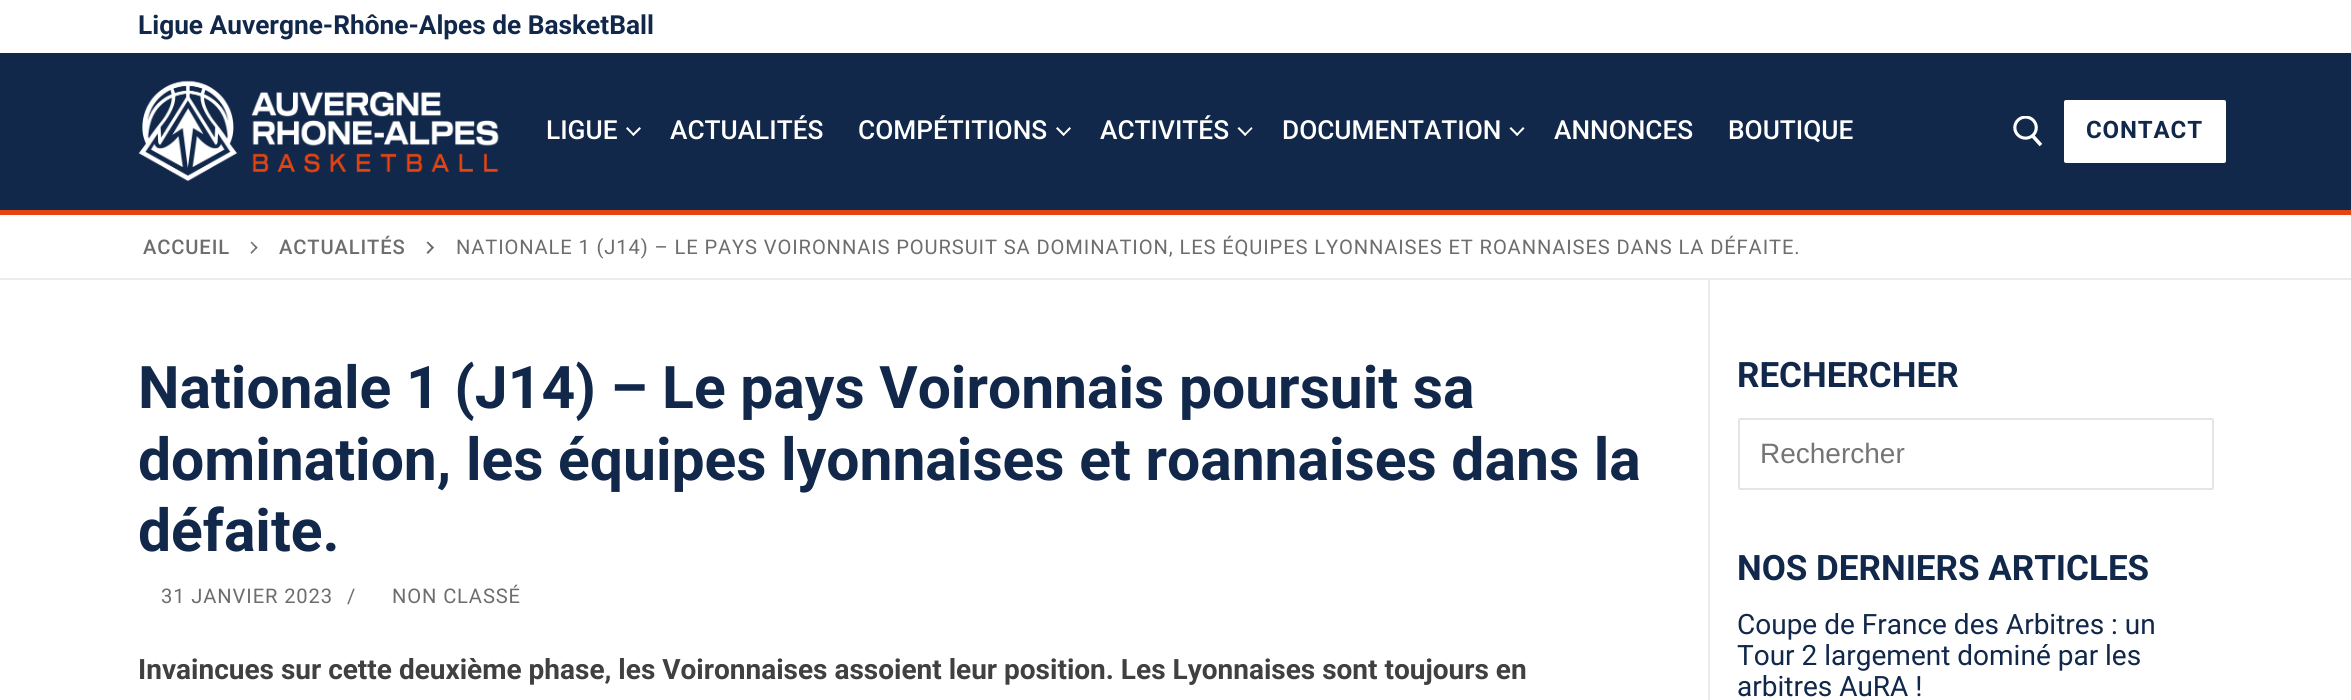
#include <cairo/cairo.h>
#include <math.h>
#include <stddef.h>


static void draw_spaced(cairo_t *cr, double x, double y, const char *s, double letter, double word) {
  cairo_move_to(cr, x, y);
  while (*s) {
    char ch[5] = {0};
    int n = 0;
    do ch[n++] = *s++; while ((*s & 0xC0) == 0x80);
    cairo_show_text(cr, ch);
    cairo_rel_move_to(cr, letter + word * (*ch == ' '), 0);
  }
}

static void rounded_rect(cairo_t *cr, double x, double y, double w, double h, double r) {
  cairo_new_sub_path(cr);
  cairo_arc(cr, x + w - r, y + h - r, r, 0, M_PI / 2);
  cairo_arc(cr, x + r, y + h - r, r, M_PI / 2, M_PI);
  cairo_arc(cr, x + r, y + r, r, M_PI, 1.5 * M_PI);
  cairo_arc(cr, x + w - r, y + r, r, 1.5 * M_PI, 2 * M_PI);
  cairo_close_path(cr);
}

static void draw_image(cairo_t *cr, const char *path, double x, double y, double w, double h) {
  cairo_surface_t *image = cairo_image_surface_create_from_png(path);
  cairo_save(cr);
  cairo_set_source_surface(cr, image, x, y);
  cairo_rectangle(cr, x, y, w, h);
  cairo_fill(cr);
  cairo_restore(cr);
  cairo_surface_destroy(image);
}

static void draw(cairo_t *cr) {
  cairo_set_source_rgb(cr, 1, 1, 1);
  cairo_paint(cr);
  cairo_set_source_rgb(cr, 17 / 255.0, 40 / 255.0, 75 / 255.0);
  cairo_rectangle(cr, 0, 53, 2351, 157);
  cairo_fill(cr);
  cairo_set_source_rgb(cr, 230 / 255.0, 68 / 255.0, 17 / 255.0);
  cairo_rectangle(cr, 0, 210, 2351, 5);
  cairo_fill(cr);
  draw_image(cr, "images/1.png", 138, 80, 361, 102);
  cairo_set_source_rgb(cr, 1, 1, 1);
  cairo_new_path(cr);
  cairo_move_to(cr, 633.5, 136);
  cairo_line_to(cr, 626, 128.5);
  cairo_line_to(cr, 627.5, 127);
  cairo_line_to(cr, 634.5, 134.5);
  cairo_close_path(cr);
  cairo_fill(cr);
  cairo_new_path(cr);
  cairo_move_to(cr, 633.5, 136);
  cairo_line_to(cr, 632, 134.5);
  cairo_line_to(cr, 639.5, 127);
  cairo_line_to(cr, 641, 128.5);
  cairo_close_path(cr);
  cairo_fill(cr);
  cairo_new_path(cr);
  cairo_move_to(cr, 1063.5, 136);
  cairo_line_to(cr, 1056, 128.5);
  cairo_line_to(cr, 1057.5, 127);
  cairo_line_to(cr, 1065, 134.5);
  cairo_close_path(cr);
  cairo_fill(cr);
  cairo_new_path(cr);
  cairo_move_to(cr, 1063.5, 136);
  cairo_line_to(cr, 1062.5, 134.5);
  cairo_line_to(cr, 1069.5, 127);
  cairo_line_to(cr, 1071, 128.5);
  cairo_close_path(cr);
  cairo_fill(cr);
  cairo_new_path(cr);
  cairo_move_to(cr, 1245, 136);
  cairo_line_to(cr, 1237.5, 128.5);
  cairo_line_to(cr, 1239, 127);
  cairo_line_to(cr, 1246.5, 134.5);
  cairo_close_path(cr);
  cairo_fill(cr);
  cairo_new_path(cr);
  cairo_move_to(cr, 1245, 136);
  cairo_line_to(cr, 1244, 134.5);
  cairo_line_to(cr, 1251.5, 127);
  cairo_line_to(cr, 1252.5, 128.5);
  cairo_close_path(cr);
  cairo_fill(cr);
  cairo_new_path(cr);
  cairo_move_to(cr, 1517, 136);
  cairo_line_to(cr, 1509.5, 128.5);
  cairo_line_to(cr, 1511, 127);
  cairo_line_to(cr, 1518.5, 134.5);
  cairo_close_path(cr);
  cairo_fill(cr);
  cairo_new_path(cr);
  cairo_move_to(cr, 1517, 136);
  cairo_line_to(cr, 1516, 134.5);
  cairo_line_to(cr, 1523, 127);
  cairo_line_to(cr, 1524.5, 128.5);
  cairo_close_path(cr);
  cairo_fill(cr);
  draw_image(cr, "images/2.png", 2013, 116, 30, 31);
  rounded_rect(cr, 2063, 99, 164, 65, 3);
  cairo_fill_preserve(cr);
  cairo_set_source_rgb(cr, 17 / 255.0, 40 / 255.0, 75 / 255.0);
  cairo_stroke(cr);
  cairo_set_source_rgb(cr, 234 / 255.0, 236 / 255.0, 238 / 255.0);
  cairo_rectangle(cr, 0, 278, 2351, 2);
  cairo_fill(cr);
  cairo_set_source_rgb(cr, 109 / 255.0, 109 / 255.0, 109 / 255.0);
  cairo_new_path(cr);
  cairo_move_to(cr, 257.5, 247.5);
  cairo_line_to(cr, 251.5, 254);
  cairo_line_to(cr, 250.5, 252.5);
  cairo_line_to(cr, 256.5, 246.5);
  cairo_close_path(cr);
  cairo_fill(cr);
  cairo_new_path(cr);
  cairo_move_to(cr, 257.5, 247.5);
  cairo_line_to(cr, 256.5, 249);
  cairo_line_to(cr, 250.5, 242.5);
  cairo_line_to(cr, 251.5, 241.5);
  cairo_close_path(cr);
  cairo_fill(cr);
  cairo_new_path(cr);
  cairo_move_to(cr, 434, 247.5);
  cairo_line_to(cr, 428, 254);
  cairo_line_to(cr, 426.5, 252.5);
  cairo_line_to(cr, 432.5, 246.5);
  cairo_close_path(cr);
  cairo_fill(cr);
  cairo_new_path(cr);
  cairo_move_to(cr, 434, 247.5);
  cairo_line_to(cr, 432.5, 249);
  cairo_line_to(cr, 426.5, 242.5);
  cairo_line_to(cr, 428, 241.5);
  cairo_close_path(cr);
  cairo_fill(cr);
  cairo_set_source_rgb(cr, 234 / 255.0, 236 / 255.0, 238 / 255.0);
  cairo_rectangle(cr, 1708, 280, 2, 420);
  cairo_fill(cr);
  rounded_rect(cr, 1739, 419, 474, 70, 1);
  cairo_set_source_rgb(cr, 229 / 255.0, 229 / 255.0, 229 / 255.0);
  cairo_stroke(cr);
  cairo_select_font_face(cr, "Roboto", CAIRO_FONT_SLANT_NORMAL, CAIRO_FONT_WEIGHT_BOLD);
  cairo_set_font_size(cr, 26.25);
  cairo_set_source_rgb(cr, 17 / 255.0, 40 / 255.0, 75 / 255.0);
  cairo_move_to(cr, 138, 34);
  cairo_show_text(cr, "Ligue Auvergne-Rhône-Alpes de BasketBall");
  cairo_select_font_face(cr, "Roboto Medium", CAIRO_FONT_SLANT_NORMAL, CAIRO_FONT_WEIGHT_NORMAL);
  cairo_set_source_rgb(cr, 1, 1, 1);
  cairo_move_to(cr, 546, 139);
  cairo_show_text(cr, "LIGUE");
  cairo_move_to(cr, 670, 139);
  cairo_show_text(cr, "ACTUALITÉS");
  cairo_move_to(cr, 858, 139);
  cairo_show_text(cr, "COMPÉTITIONS");
  cairo_move_to(cr, 1100, 139);
  cairo_show_text(cr, "ACTIVITÉS");
  cairo_move_to(cr, 1282, 139);
  cairo_show_text(cr, "DOCUMENTATION");
  cairo_move_to(cr, 1554, 139);
  cairo_show_text(cr, "ANNONCES");
  cairo_move_to(cr, 1728, 139);
  cairo_show_text(cr, "BOUTIQUE");
  cairo_select_font_face(cr, "Roboto", CAIRO_FONT_SLANT_NORMAL, CAIRO_FONT_WEIGHT_BOLD);
  cairo_set_font_size(cr, 24);
  cairo_set_source_rgb(cr, 17 / 255.0, 40 / 255.0, 75 / 255.0);
  draw_spaced(cr, 2086, 138, "CONTACT", 0.88, 0);
  cairo_select_font_face(cr, "Roboto Medium", CAIRO_FONT_SLANT_NORMAL, CAIRO_FONT_WEIGHT_NORMAL);
  cairo_set_font_size(cr, 20.15);
  cairo_set_source_rgb(cr, 109 / 255.0, 109 / 255.0, 109 / 255.0);
  draw_spaced(cr, 143, 254, "ACCUEIL", 0.88, 0);
  draw_spaced(cr, 279, 254, "ACTUALITÉS", 0.88, 0);
  cairo_select_font_face(cr, "Roboto", CAIRO_FONT_SLANT_NORMAL, CAIRO_FONT_WEIGHT_NORMAL);
  draw_spaced(cr, 456, 254, "NATIONALE 1 (J14) – LE PAYS VOIRONNAIS POURSUIT SA DOMINATION, LES ÉQUIPES LYONNAISES ET ROANNAISES DANS LA DÉFAITE.", 0.88, 0);
  cairo_select_font_face(cr, "Roboto", CAIRO_FONT_SLANT_NORMAL, CAIRO_FONT_WEIGHT_BOLD);
  cairo_set_font_size(cr, 58.8);
  cairo_set_source_rgb(cr, 17 / 255.0, 40 / 255.0, 75 / 255.0);
  cairo_move_to(cr, 138, 408);
  cairo_show_text(cr, "Nationale 1 (J14) – Le pays Voironnais poursuit sa");
  cairo_move_to(cr, 138, 480);
  cairo_show_text(cr, "domination, les équipes lyonnaises et roannaises dans la");
  cairo_move_to(cr, 138, 551);
  cairo_show_text(cr, "défaite.");
  cairo_select_font_face(cr, "Roboto", CAIRO_FONT_SLANT_NORMAL, CAIRO_FONT_WEIGHT_NORMAL);
  cairo_set_font_size(cr, 20.15);
  cairo_set_source_rgb(cr, 109 / 255.0, 109 / 255.0, 109 / 255.0);
  draw_spaced(cr, 161, 603, "31 JANVIER 2023", 0.88, 0);
  draw_spaced(cr, 347, 603, "/", 0.88, 0);
  draw_spaced(cr, 392, 603, "NON CLASSÉ", 0.88, 0);
  cairo_select_font_face(cr, "Roboto", CAIRO_FONT_SLANT_NORMAL, CAIRO_FONT_WEIGHT_BOLD);
  cairo_set_font_size(cr, 28);
  cairo_set_source_rgb(cr, 64 / 255.0, 64 / 255.0, 64 / 255.0);
  cairo_move_to(cr, 138, 679);
  cairo_show_text(cr, "Invaincues sur cette deuxième phase, les Voironnaises assoient leur position. Les Lyonnaises sont toujours en");
  cairo_set_font_size(cr, 35);
  cairo_set_source_rgb(cr, 17 / 255.0, 40 / 255.0, 75 / 255.0);
  cairo_move_to(cr, 1737, 387);
  cairo_show_text(cr, "RECHERCHER");
  cairo_select_font_face(cr, "Liberation Sans", CAIRO_FONT_SLANT_NORMAL, CAIRO_FONT_WEIGHT_NORMAL);
  cairo_set_font_size(cr, 28);
  cairo_set_source_rgb(cr, 117 / 255.0, 117 / 255.0, 117 / 255.0);
  cairo_move_to(cr, 1760, 463);
  cairo_show_text(cr, "Rechercher");
  cairo_select_font_face(cr, "Roboto", CAIRO_FONT_SLANT_NORMAL, CAIRO_FONT_WEIGHT_BOLD);
  cairo_set_font_size(cr, 35);
  cairo_set_source_rgb(cr, 17 / 255.0, 40 / 255.0, 75 / 255.0);
  cairo_move_to(cr, 1737, 580);
  cairo_show_text(cr, "NOS DERNIERS ARTICLES");
  cairo_select_font_face(cr, "Roboto", CAIRO_FONT_SLANT_NORMAL, CAIRO_FONT_WEIGHT_NORMAL);
  cairo_set_font_size(cr, 28);
  cairo_move_to(cr, 1737, 634);
  cairo_show_text(cr, "Coupe de France des Arbitres : un");
  cairo_move_to(cr, 1737, 665);
  cairo_show_text(cr, "Tour 2 largement dominé par les");
  cairo_move_to(cr, 1737, 696);
  cairo_show_text(cr, "arbitres AuRA !");
}

int main(void) {
  cairo_surface_t *surface = cairo_image_surface_create(CAIRO_FORMAT_RGB24, 2351, 700);
  cairo_t *cr = cairo_create(surface);
  cairo_font_options_t *options = cairo_font_options_create();
  cairo_font_options_set_hint_metrics(options, CAIRO_HINT_METRICS_OFF);
  cairo_font_options_set_hint_style(options, CAIRO_HINT_STYLE_NONE);
  cairo_set_font_options(cr, options);
  cairo_set_miter_limit(cr, 4);
  draw(cr);
  cairo_surface_write_to_png(surface, "out.png");
  cairo_font_options_destroy(options);
  cairo_destroy(cr);
  cairo_surface_destroy(surface);
  return 0;
}
